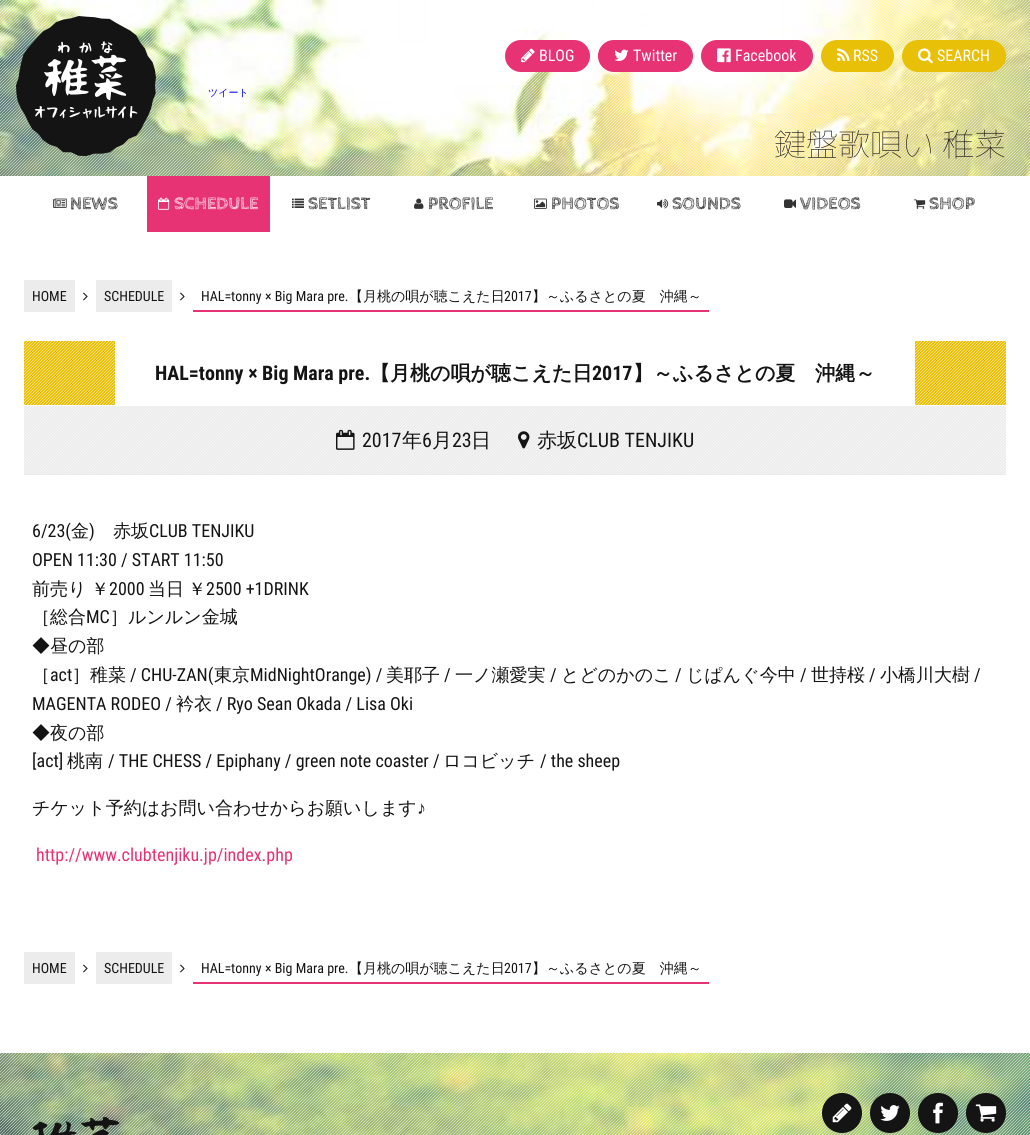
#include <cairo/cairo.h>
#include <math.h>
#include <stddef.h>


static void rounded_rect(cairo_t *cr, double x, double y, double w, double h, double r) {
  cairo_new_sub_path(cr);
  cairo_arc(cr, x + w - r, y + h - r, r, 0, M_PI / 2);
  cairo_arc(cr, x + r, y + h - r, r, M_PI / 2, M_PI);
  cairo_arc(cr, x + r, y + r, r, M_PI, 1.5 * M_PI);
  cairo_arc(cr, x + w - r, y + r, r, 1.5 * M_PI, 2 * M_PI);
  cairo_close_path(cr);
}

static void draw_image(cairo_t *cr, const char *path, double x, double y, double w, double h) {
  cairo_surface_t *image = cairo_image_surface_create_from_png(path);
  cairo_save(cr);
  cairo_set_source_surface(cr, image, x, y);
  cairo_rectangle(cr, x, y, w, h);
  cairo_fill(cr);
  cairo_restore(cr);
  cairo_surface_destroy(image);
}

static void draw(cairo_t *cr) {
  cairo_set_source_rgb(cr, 1, 1, 1);
  cairo_paint(cr);
  draw_image(cr, "images/1.png", 0, 0, 1030, 1135);
  draw_image(cr, "images/2.png", 0, 0, 1030, 1135);
  draw_image(cr, "images/3.png", 16, 16, 140, 140);
  cairo_set_source_rgb(cr, 231 / 255.0, 50 / 255.0, 115 / 255.0);
  rounded_rect(cr, 505, 40, 85, 32, 16);
  cairo_fill(cr);
  draw_image(cr, "images/4.png", 521, 48, 14, 15);
  rounded_rect(cr, 598, 40, 95, 32, 16);
  cairo_fill(cr);
  draw_image(cr, "images/5.png", 614, 49, 15, 12);
  rounded_rect(cr, 701, 40, 112, 32, 16);
  cairo_fill(cr);
  draw_image(cr, "images/6.png", 717, 48, 14, 15);
  cairo_set_source_rgb(cr, 232 / 255.0, 192 / 255.0, 7 / 255.0);
  rounded_rect(cr, 821, 40, 73, 32, 16);
  cairo_fill(cr);
  draw_image(cr, "images/7.png", 837, 48, 13, 13);
  rounded_rect(cr, 902, 40, 104, 32, 16);
  cairo_fill(cr);
  draw_image(cr, "images/8.png", 918, 48, 15, 16);
  cairo_set_source_rgb(cr, 1, 1, 1);
  cairo_rectangle(cr, 0, 176, 1030, 877);
  cairo_fill(cr);
  draw_image(cr, "images/9.png", 53, 198, 14, 10);
  cairo_set_source_rgb(cr, 231 / 255.0, 50 / 255.0, 115 / 255.0);
  cairo_rectangle(cr, 147, 176, 123, 56);
  cairo_fill(cr);
  draw_image(cr, "images/10.png", 158, 197, 12, 13);
  draw_image(cr, "images/11.png", 292, 198, 12, 10);
  draw_image(cr, "images/12.png", 414, 198, 10, 11);
  draw_image(cr, "images/13.png", 534, 198, 13, 11);
  draw_image(cr, "images/14.png", 657, 199, 12, 10);
  draw_image(cr, "images/15.png", 784, 199, 12, 9);
  draw_image(cr, "images/16.png", 914, 199, 12, 10);
  cairo_set_source_rgb(cr, 236 / 255.0, 236 / 255.0, 236 / 255.0);
  cairo_rectangle(cr, 24, 280, 51, 32);
  cairo_fill(cr);
  draw_image(cr, "images/17.png", 83, 292, 5, 9);
  cairo_rectangle(cr, 96, 280, 76, 32);
  cairo_fill(cr);
  draw_image(cr, "images/17.png", 180, 292, 5, 9);
  cairo_set_source_rgb(cr, 231 / 255.0, 50 / 255.0, 115 / 255.0);
  cairo_rectangle(cr, 193, 310, 516, 2);
  cairo_fill(cr);
  cairo_set_source_rgb(cr, 232 / 255.0, 192 / 255.0, 7 / 255.0);
  cairo_rectangle(cr, 24, 341, 982, 64);
  cairo_fill(cr);
  draw_image(cr, "images/18.png", 24, 341, 982, 64);
  cairo_set_source_rgb(cr, 1, 1, 1);
  cairo_rectangle(cr, 115, 341, 800, 64);
  cairo_fill(cr);
  cairo_set_source_rgb(cr, 236 / 255.0, 236 / 255.0, 236 / 255.0);
  cairo_rectangle(cr, 24, 406, 982, 69);
  cairo_fill(cr);
  draw_image(cr, "images/19.png", 24, 406, 982, 68);
  draw_image(cr, "images/20.png", 336, 429, 19, 21);
  draw_image(cr, "images/21.png", 518, 431, 12, 18);
  cairo_rectangle(cr, 24, 952, 51, 32);
  cairo_fill(cr);
  draw_image(cr, "images/17.png", 83, 964, 5, 9);
  cairo_rectangle(cr, 96, 952, 76, 32);
  cairo_fill(cr);
  draw_image(cr, "images/17.png", 180, 964, 5, 9);
  cairo_set_source_rgb(cr, 231 / 255.0, 50 / 255.0, 115 / 255.0);
  cairo_rectangle(cr, 193, 982, 516, 2);
  cairo_fill(cr);
  draw_image(cr, "images/22.png", 32, 1117, 88, 18);
  draw_image(cr, "images/23.png", 822, 1093, 40, 40);
  draw_image(cr, "images/24.png", 870, 1093, 40, 40);
  draw_image(cr, "images/25.png", 918, 1093, 40, 40);
  draw_image(cr, "images/26.png", 966, 1093, 40, 40);
  cairo_select_font_face(cr, "Roboto Condensed", CAIRO_FONT_SLANT_NORMAL, CAIRO_FONT_WEIGHT_NORMAL);
  cairo_set_font_size(cr, 16);
  cairo_set_source_rgb(cr, 1, 1, 1);
  cairo_move_to(cr, 539, 61);
  cairo_show_text(cr, "BLOG");
  cairo_move_to(cr, 633, 61);
  cairo_show_text(cr, "Twitter");
  cairo_move_to(cr, 735, 61);
  cairo_show_text(cr, "Facebook");
  cairo_move_to(cr, 853, 61);
  cairo_show_text(cr, "RSS");
  cairo_move_to(cr, 937, 61);
  cairo_show_text(cr, "SEARCH");
  cairo_select_font_face(cr, "WenQuanYi Zen Hei Medium", CAIRO_FONT_SLANT_NORMAL, CAIRO_FONT_WEIGHT_NORMAL);
  cairo_set_font_size(cr, 10);
  cairo_set_source_rgb(cr, 0, 0, 238 / 255.0);
  cairo_move_to(cr, 208, 96);
  cairo_show_text(cr, "ツイート");
  cairo_select_font_face(cr, "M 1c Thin", CAIRO_FONT_SLANT_NORMAL, CAIRO_FONT_WEIGHT_NORMAL);
  cairo_set_font_size(cr, 32);
  cairo_set_source_rgb(cr, 20 / 255.0, 20 / 255.0, 20 / 255.0);
  cairo_move_to(cr, 774, 156);
  cairo_show_text(cr, "鍵盤歌唄い 稚菜");
  cairo_select_font_face(cr, "Cabin Sketch", CAIRO_FONT_SLANT_NORMAL, CAIRO_FONT_WEIGHT_BOLD);
  cairo_set_font_size(cr, 18);
  cairo_move_to(cr, 70, 209);
  cairo_show_text(cr, "NEWS");
  cairo_set_source_rgb(cr, 1, 1, 1);
  cairo_move_to(cr, 174, 209);
  cairo_show_text(cr, "SCHEDULE");
  cairo_set_source_rgb(cr, 20 / 255.0, 20 / 255.0, 20 / 255.0);
  cairo_move_to(cr, 308, 209);
  cairo_show_text(cr, "SETLIST");
  cairo_move_to(cr, 428, 209);
  cairo_show_text(cr, "PROFILE");
  cairo_move_to(cr, 551, 209);
  cairo_show_text(cr, "PHOTOS");
  cairo_move_to(cr, 672, 209);
  cairo_show_text(cr, "SOUNDS");
  cairo_move_to(cr, 800, 209);
  cairo_show_text(cr, "VIDEOS");
  cairo_move_to(cr, 929, 209);
  cairo_show_text(cr, "SHOP");
  cairo_select_font_face(cr, "Roboto Condensed", CAIRO_FONT_SLANT_NORMAL, CAIRO_FONT_WEIGHT_NORMAL);
  cairo_set_font_size(cr, 14);
  cairo_move_to(cr, 32, 301);
  cairo_show_text(cr, "HOME");
  cairo_move_to(cr, 104, 301);
  cairo_show_text(cr, "SCHEDULE");
  cairo_move_to(cr, 201, 301);
  cairo_show_text(cr, "HAL=tonny × Big Mara pre.");
  cairo_select_font_face(cr, "WenQuanYi Zen Hei Medium", CAIRO_FONT_SLANT_NORMAL, CAIRO_FONT_WEIGHT_NORMAL);
  cairo_move_to(cr, 349, 301);
  cairo_show_text(cr, "【月桃の唄が聴こえた日");
  cairo_select_font_face(cr, "Roboto Condensed", CAIRO_FONT_SLANT_NORMAL, CAIRO_FONT_WEIGHT_NORMAL);
  cairo_move_to(cr, 504, 301);
  cairo_show_text(cr, "2017");
  cairo_select_font_face(cr, "WenQuanYi Zen Hei Medium", CAIRO_FONT_SLANT_NORMAL, CAIRO_FONT_WEIGHT_NORMAL);
  cairo_move_to(cr, 532, 301);
  cairo_show_text(cr, "】～ふるさとの夏　沖縄～");
  cairo_select_font_face(cr, "Roboto Condensed", CAIRO_FONT_SLANT_NORMAL, CAIRO_FONT_WEIGHT_BOLD);
  cairo_set_font_size(cr, 20);
  cairo_move_to(cr, 155, 380);
  cairo_show_text(cr, "HAL=tonny × Big Mara pre.");
  cairo_select_font_face(cr, "WenQuanYi Zen Hei", CAIRO_FONT_SLANT_NORMAL, CAIRO_FONT_WEIGHT_BOLD);
  cairo_move_to(cr, 370, 380);
  cairo_show_text(cr, "【月桃の唄が聴こえた日");
  cairo_select_font_face(cr, "Roboto Condensed", CAIRO_FONT_SLANT_NORMAL, CAIRO_FONT_WEIGHT_BOLD);
  cairo_move_to(cr, 592, 380);
  cairo_show_text(cr, "2017");
  cairo_select_font_face(cr, "WenQuanYi Zen Hei", CAIRO_FONT_SLANT_NORMAL, CAIRO_FONT_WEIGHT_BOLD);
  cairo_move_to(cr, 633, 380);
  cairo_show_text(cr, "】～ふるさとの夏　沖縄～");
  cairo_select_font_face(cr, "Roboto Condensed", CAIRO_FONT_SLANT_NORMAL, CAIRO_FONT_WEIGHT_NORMAL);
  cairo_move_to(cr, 362, 447);
  cairo_show_text(cr, "2017");
  cairo_select_font_face(cr, "WenQuanYi Zen Hei Medium", CAIRO_FONT_SLANT_NORMAL, CAIRO_FONT_WEIGHT_NORMAL);
  cairo_move_to(cr, 402, 447);
  cairo_show_text(cr, "年");
  cairo_select_font_face(cr, "Roboto Condensed", CAIRO_FONT_SLANT_NORMAL, CAIRO_FONT_WEIGHT_NORMAL);
  cairo_move_to(cr, 422, 447);
  cairo_show_text(cr, "6");
  cairo_select_font_face(cr, "WenQuanYi Zen Hei Medium", CAIRO_FONT_SLANT_NORMAL, CAIRO_FONT_WEIGHT_NORMAL);
  cairo_move_to(cr, 432, 447);
  cairo_show_text(cr, "月");
  cairo_select_font_face(cr, "Roboto Condensed", CAIRO_FONT_SLANT_NORMAL, CAIRO_FONT_WEIGHT_NORMAL);
  cairo_move_to(cr, 452, 447);
  cairo_show_text(cr, "23");
  cairo_select_font_face(cr, "WenQuanYi Zen Hei Medium", CAIRO_FONT_SLANT_NORMAL, CAIRO_FONT_WEIGHT_NORMAL);
  cairo_move_to(cr, 471, 447);
  cairo_show_text(cr, "日");
  cairo_move_to(cr, 537, 447);
  cairo_show_text(cr, "赤坂");
  cairo_select_font_face(cr, "Roboto Condensed", CAIRO_FONT_SLANT_NORMAL, CAIRO_FONT_WEIGHT_NORMAL);
  cairo_move_to(cr, 577, 447);
  cairo_show_text(cr, "CLUB TENJIKU");
  cairo_set_font_size(cr, 18);
  cairo_move_to(cr, 32, 537);
  cairo_show_text(cr, "6/23(");
  cairo_select_font_face(cr, "WenQuanYi Zen Hei Medium", CAIRO_FONT_SLANT_NORMAL, CAIRO_FONT_WEIGHT_NORMAL);
  cairo_move_to(cr, 71, 537);
  cairo_show_text(cr, "金");
  cairo_select_font_face(cr, "Roboto Condensed", CAIRO_FONT_SLANT_NORMAL, CAIRO_FONT_WEIGHT_NORMAL);
  cairo_move_to(cr, 89, 537);
  cairo_show_text(cr, ")");
  cairo_select_font_face(cr, "WenQuanYi Zen Hei Medium", CAIRO_FONT_SLANT_NORMAL, CAIRO_FONT_WEIGHT_NORMAL);
  cairo_move_to(cr, 113, 537);
  cairo_show_text(cr, "赤坂");
  cairo_select_font_face(cr, "Roboto Condensed", CAIRO_FONT_SLANT_NORMAL, CAIRO_FONT_WEIGHT_NORMAL);
  cairo_move_to(cr, 149, 537);
  cairo_show_text(cr, "CLUB TENJIKU");
  cairo_move_to(cr, 32, 566);
  cairo_show_text(cr, "OPEN 11:30 / START 11:50");
  cairo_select_font_face(cr, "WenQuanYi Zen Hei Medium", CAIRO_FONT_SLANT_NORMAL, CAIRO_FONT_WEIGHT_NORMAL);
  cairo_move_to(cr, 32, 595);
  cairo_show_text(cr, "前売り");
  cairo_move_to(cr, 91, 595);
  cairo_show_text(cr, "￥");
  cairo_select_font_face(cr, "Roboto Condensed", CAIRO_FONT_SLANT_NORMAL, CAIRO_FONT_WEIGHT_NORMAL);
  cairo_move_to(cr, 109, 595);
  cairo_show_text(cr, "2000");
  cairo_select_font_face(cr, "WenQuanYi Zen Hei Medium", CAIRO_FONT_SLANT_NORMAL, CAIRO_FONT_WEIGHT_NORMAL);
  cairo_move_to(cr, 148, 595);
  cairo_show_text(cr, "当日");
  cairo_move_to(cr, 188, 595);
  cairo_show_text(cr, "￥");
  cairo_select_font_face(cr, "Roboto Condensed", CAIRO_FONT_SLANT_NORMAL, CAIRO_FONT_WEIGHT_NORMAL);
  cairo_move_to(cr, 206, 595);
  cairo_show_text(cr, "2500 +1DRINK");
  cairo_select_font_face(cr, "WenQuanYi Zen Hei Medium", CAIRO_FONT_SLANT_NORMAL, CAIRO_FONT_WEIGHT_NORMAL);
  cairo_move_to(cr, 32, 623);
  cairo_show_text(cr, "［総合");
  cairo_select_font_face(cr, "Roboto Condensed", CAIRO_FONT_SLANT_NORMAL, CAIRO_FONT_WEIGHT_NORMAL);
  cairo_move_to(cr, 86, 623);
  cairo_show_text(cr, "MC");
  cairo_select_font_face(cr, "WenQuanYi Zen Hei Medium", CAIRO_FONT_SLANT_NORMAL, CAIRO_FONT_WEIGHT_NORMAL);
  cairo_move_to(cr, 110, 623);
  cairo_show_text(cr, "］ルンルン金城");
  cairo_move_to(cr, 32, 652);
  cairo_show_text(cr, "◆昼の部");
  cairo_move_to(cr, 32, 681);
  cairo_show_text(cr, "［");
  cairo_select_font_face(cr, "Roboto Condensed", CAIRO_FONT_SLANT_NORMAL, CAIRO_FONT_WEIGHT_NORMAL);
  cairo_move_to(cr, 50, 681);
  cairo_show_text(cr, "act");
  cairo_select_font_face(cr, "WenQuanYi Zen Hei Medium", CAIRO_FONT_SLANT_NORMAL, CAIRO_FONT_WEIGHT_NORMAL);
  cairo_move_to(cr, 72, 681);
  cairo_show_text(cr, "］稚菜");
  cairo_select_font_face(cr, "Roboto Condensed", CAIRO_FONT_SLANT_NORMAL, CAIRO_FONT_WEIGHT_NORMAL);
  cairo_move_to(cr, 130, 681);
  cairo_show_text(cr, "/ CHU-ZAN(");
  cairo_select_font_face(cr, "WenQuanYi Zen Hei Medium", CAIRO_FONT_SLANT_NORMAL, CAIRO_FONT_WEIGHT_NORMAL);
  cairo_move_to(cr, 214, 681);
  cairo_show_text(cr, "東京");
  cairo_select_font_face(cr, "Roboto Condensed", CAIRO_FONT_SLANT_NORMAL, CAIRO_FONT_WEIGHT_NORMAL);
  cairo_move_to(cr, 250, 681);
  cairo_show_text(cr, "MidNightOrange) /");
  cairo_select_font_face(cr, "WenQuanYi Zen Hei Medium", CAIRO_FONT_SLANT_NORMAL, CAIRO_FONT_WEIGHT_NORMAL);
  cairo_move_to(cr, 386, 681);
  cairo_show_text(cr, "美耶子");
  cairo_select_font_face(cr, "Roboto Condensed", CAIRO_FONT_SLANT_NORMAL, CAIRO_FONT_WEIGHT_NORMAL);
  cairo_move_to(cr, 444, 681);
  cairo_show_text(cr, "/");
  cairo_select_font_face(cr, "WenQuanYi Zen Hei Medium", CAIRO_FONT_SLANT_NORMAL, CAIRO_FONT_WEIGHT_NORMAL);
  cairo_move_to(cr, 455, 681);
  cairo_show_text(cr, "一ノ瀬愛実");
  cairo_select_font_face(cr, "Roboto Condensed", CAIRO_FONT_SLANT_NORMAL, CAIRO_FONT_WEIGHT_NORMAL);
  cairo_move_to(cr, 550, 681);
  cairo_show_text(cr, "/");
  cairo_select_font_face(cr, "WenQuanYi Zen Hei Medium", CAIRO_FONT_SLANT_NORMAL, CAIRO_FONT_WEIGHT_NORMAL);
  cairo_move_to(cr, 561, 681);
  cairo_show_text(cr, "とどのかのこ");
  cairo_select_font_face(cr, "Roboto Condensed", CAIRO_FONT_SLANT_NORMAL, CAIRO_FONT_WEIGHT_NORMAL);
  cairo_move_to(cr, 675, 681);
  cairo_show_text(cr, "/");
  cairo_select_font_face(cr, "WenQuanYi Zen Hei Medium", CAIRO_FONT_SLANT_NORMAL, CAIRO_FONT_WEIGHT_NORMAL);
  cairo_move_to(cr, 686, 681);
  cairo_show_text(cr, "じぱんぐ今中");
  cairo_select_font_face(cr, "Roboto Condensed", CAIRO_FONT_SLANT_NORMAL, CAIRO_FONT_WEIGHT_NORMAL);
  cairo_move_to(cr, 800, 681);
  cairo_show_text(cr, "/");
  cairo_select_font_face(cr, "WenQuanYi Zen Hei Medium", CAIRO_FONT_SLANT_NORMAL, CAIRO_FONT_WEIGHT_NORMAL);
  cairo_move_to(cr, 811, 681);
  cairo_show_text(cr, "世持桜");
  cairo_select_font_face(cr, "Roboto Condensed", CAIRO_FONT_SLANT_NORMAL, CAIRO_FONT_WEIGHT_NORMAL);
  cairo_move_to(cr, 869, 681);
  cairo_show_text(cr, "/");
  cairo_select_font_face(cr, "WenQuanYi Zen Hei Medium", CAIRO_FONT_SLANT_NORMAL, CAIRO_FONT_WEIGHT_NORMAL);
  cairo_move_to(cr, 880, 681);
  cairo_show_text(cr, "小橋川大樹");
  cairo_select_font_face(cr, "Roboto Condensed", CAIRO_FONT_SLANT_NORMAL, CAIRO_FONT_WEIGHT_NORMAL);
  cairo_move_to(cr, 974, 681);
  cairo_show_text(cr, "/");
  cairo_move_to(cr, 32, 710);
  cairo_show_text(cr, "MAGENTA RODEO /");
  cairo_select_font_face(cr, "WenQuanYi Zen Hei Medium", CAIRO_FONT_SLANT_NORMAL, CAIRO_FONT_WEIGHT_NORMAL);
  cairo_move_to(cr, 176, 710);
  cairo_show_text(cr, "衿衣");
  cairo_select_font_face(cr, "Roboto Condensed", CAIRO_FONT_SLANT_NORMAL, CAIRO_FONT_WEIGHT_NORMAL);
  cairo_move_to(cr, 216, 710);
  cairo_show_text(cr, "/ Ryo Sean Okada / Lisa Oki");
  cairo_select_font_face(cr, "WenQuanYi Zen Hei Medium", CAIRO_FONT_SLANT_NORMAL, CAIRO_FONT_WEIGHT_NORMAL);
  cairo_move_to(cr, 32, 739);
  cairo_show_text(cr, "◆夜の部");
  cairo_select_font_face(cr, "Roboto Condensed", CAIRO_FONT_SLANT_NORMAL, CAIRO_FONT_WEIGHT_NORMAL);
  cairo_move_to(cr, 32, 767);
  cairo_show_text(cr, "[act]");
  cairo_select_font_face(cr, "WenQuanYi Zen Hei Medium", CAIRO_FONT_SLANT_NORMAL, CAIRO_FONT_WEIGHT_NORMAL);
  cairo_move_to(cr, 67, 767);
  cairo_show_text(cr, "桃南");
  cairo_select_font_face(cr, "Roboto Condensed", CAIRO_FONT_SLANT_NORMAL, CAIRO_FONT_WEIGHT_NORMAL);
  cairo_move_to(cr, 108, 767);
  cairo_show_text(cr, "/ THE CHESS / Epiphany / green note coaster /");
  cairo_select_font_face(cr, "WenQuanYi Zen Hei Medium", CAIRO_FONT_SLANT_NORMAL, CAIRO_FONT_WEIGHT_NORMAL);
  cairo_move_to(cr, 443, 767);
  cairo_show_text(cr, "ロコビッチ");
  cairo_select_font_face(cr, "Roboto Condensed", CAIRO_FONT_SLANT_NORMAL, CAIRO_FONT_WEIGHT_NORMAL);
  cairo_move_to(cr, 540, 767);
  cairo_show_text(cr, "/ the sheep");
  cairo_select_font_face(cr, "WenQuanYi Zen Hei Medium", CAIRO_FONT_SLANT_NORMAL, CAIRO_FONT_WEIGHT_NORMAL);
  cairo_move_to(cr, 32, 814);
  cairo_show_text(cr, "チケット予約はお問い合わせからお願いします");
  cairo_select_font_face(cr, "Liberation Sans", CAIRO_FONT_SLANT_NORMAL, CAIRO_FONT_WEIGHT_NORMAL);
  cairo_move_to(cr, 417, 814);
  cairo_show_text(cr, "♪");
  cairo_select_font_face(cr, "Roboto Condensed", CAIRO_FONT_SLANT_NORMAL, CAIRO_FONT_WEIGHT_NORMAL);
  cairo_set_source_rgb(cr, 231 / 255.0, 50 / 255.0, 115 / 255.0);
  cairo_move_to(cr, 36, 861);
  cairo_show_text(cr, "http://www.clubtenjiku.jp/index.php");
  cairo_set_font_size(cr, 14);
  cairo_set_source_rgb(cr, 20 / 255.0, 20 / 255.0, 20 / 255.0);
  cairo_move_to(cr, 32, 973);
  cairo_show_text(cr, "HOME");
  cairo_move_to(cr, 104, 973);
  cairo_show_text(cr, "SCHEDULE");
  cairo_move_to(cr, 201, 973);
  cairo_show_text(cr, "HAL=tonny × Big Mara pre.");
  cairo_select_font_face(cr, "WenQuanYi Zen Hei Medium", CAIRO_FONT_SLANT_NORMAL, CAIRO_FONT_WEIGHT_NORMAL);
  cairo_move_to(cr, 349, 973);
  cairo_show_text(cr, "【月桃の唄が聴こえた日");
  cairo_select_font_face(cr, "Roboto Condensed", CAIRO_FONT_SLANT_NORMAL, CAIRO_FONT_WEIGHT_NORMAL);
  cairo_move_to(cr, 504, 973);
  cairo_show_text(cr, "2017");
  cairo_select_font_face(cr, "WenQuanYi Zen Hei Medium", CAIRO_FONT_SLANT_NORMAL, CAIRO_FONT_WEIGHT_NORMAL);
  cairo_move_to(cr, 532, 973);
  cairo_show_text(cr, "】～ふるさとの夏　沖縄～");
}

int main(void) {
  cairo_surface_t *surface = cairo_image_surface_create(CAIRO_FORMAT_RGB24, 1030, 1135);
  cairo_t *cr = cairo_create(surface);
  cairo_font_options_t *options = cairo_font_options_create();
  cairo_font_options_set_hint_metrics(options, CAIRO_HINT_METRICS_OFF);
  cairo_font_options_set_hint_style(options, CAIRO_HINT_STYLE_NONE);
  cairo_set_font_options(cr, options);
  cairo_set_miter_limit(cr, 4);
  draw(cr);
  cairo_surface_write_to_png(surface, "out.png");
  cairo_font_options_destroy(options);
  cairo_destroy(cr);
  cairo_surface_destroy(surface);
  return 0;
}
